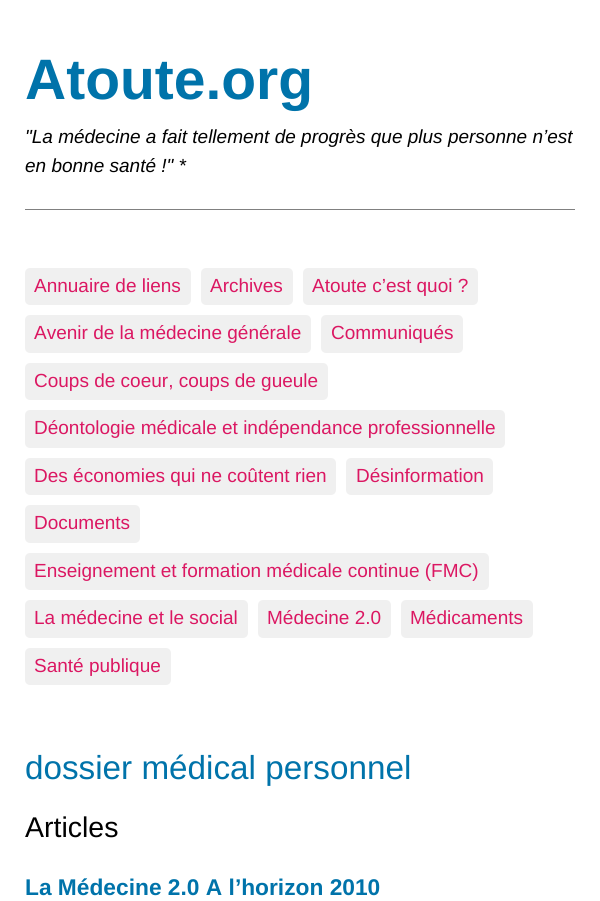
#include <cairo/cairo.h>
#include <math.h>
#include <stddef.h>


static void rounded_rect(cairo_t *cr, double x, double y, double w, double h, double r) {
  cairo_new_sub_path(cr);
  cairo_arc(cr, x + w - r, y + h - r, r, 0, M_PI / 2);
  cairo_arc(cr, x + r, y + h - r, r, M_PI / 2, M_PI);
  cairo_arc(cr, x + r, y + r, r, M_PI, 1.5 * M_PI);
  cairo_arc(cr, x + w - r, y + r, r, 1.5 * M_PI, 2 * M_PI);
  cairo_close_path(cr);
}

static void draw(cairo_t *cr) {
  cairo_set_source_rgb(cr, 1, 1, 1);
  cairo_paint(cr);
  cairo_set_source_rgb(cr, 128 / 255.0, 128 / 255.0, 128 / 255.0);
  cairo_rectangle(cr, 25, 209, 550, 1);
  cairo_fill(cr);
  cairo_set_source_rgb(cr, 240 / 255.0, 240 / 255.0, 240 / 255.0);
  rounded_rect(cr, 25, 268, 166, 37, 5);
  cairo_fill(cr);
  rounded_rect(cr, 201, 268, 92, 37, 5);
  cairo_fill(cr);
  rounded_rect(cr, 303, 268, 175, 37, 5);
  cairo_fill(cr);
  rounded_rect(cr, 25, 315, 286, 38, 5);
  cairo_fill(cr);
  rounded_rect(cr, 321, 315, 142, 38, 5);
  cairo_fill(cr);
  rounded_rect(cr, 25, 363, 303, 37, 5);
  cairo_fill(cr);
  rounded_rect(cr, 25, 410, 480, 38, 5);
  cairo_fill(cr);
  rounded_rect(cr, 25, 458, 311, 37, 5);
  cairo_fill(cr);
  rounded_rect(cr, 346, 458, 147, 37, 5);
  cairo_fill(cr);
  rounded_rect(cr, 25, 505, 115, 38, 5);
  cairo_fill(cr);
  rounded_rect(cr, 25, 553, 464, 37, 5);
  cairo_fill(cr);
  rounded_rect(cr, 25, 600, 223, 38, 5);
  cairo_fill(cr);
  rounded_rect(cr, 258, 600, 133, 38, 5);
  cairo_fill(cr);
  rounded_rect(cr, 401, 600, 132, 38, 5);
  cairo_fill(cr);
  rounded_rect(cr, 25, 648, 146, 37, 5);
  cairo_fill(cr);
  cairo_select_font_face(cr, "Liberation Sans", CAIRO_FONT_SLANT_NORMAL, CAIRO_FONT_WEIGHT_BOLD);
  cairo_set_font_size(cr, 57);
  cairo_set_source_rgb(cr, 0, 115 / 255.0, 170 / 255.0);
  cairo_move_to(cr, 25, 99);
  cairo_show_text(cr, "Atoute.org");
  cairo_select_font_face(cr, "Liberation Sans", CAIRO_FONT_SLANT_ITALIC, CAIRO_FONT_WEIGHT_NORMAL);
  cairo_set_font_size(cr, 19);
  cairo_set_source_rgb(cr, 0, 0, 0);
  cairo_move_to(cr, 25, 143);
  cairo_show_text(cr, "\"La médecine a fait tellement de progrès que plus personne n’est");
  cairo_move_to(cr, 25, 172);
  cairo_show_text(cr, "en bonne santé !\" *");
  cairo_select_font_face(cr, "Liberation Sans", CAIRO_FONT_SLANT_NORMAL, CAIRO_FONT_WEIGHT_NORMAL);
  cairo_set_source_rgb(cr, 219 / 255.0, 23 / 255.0, 98 / 255.0);
  cairo_move_to(cr, 34, 292);
  cairo_show_text(cr, "Annuaire de liens");
  cairo_move_to(cr, 210, 292);
  cairo_show_text(cr, "Archives");
  cairo_move_to(cr, 312, 292);
  cairo_show_text(cr, "Atoute c’est quoi ?");
  cairo_move_to(cr, 34, 339);
  cairo_show_text(cr, "Avenir de la médecine générale");
  cairo_move_to(cr, 331, 339);
  cairo_show_text(cr, "Communiqués");
  cairo_move_to(cr, 34, 387);
  cairo_show_text(cr, "Coups de coeur, coups de gueule");
  cairo_move_to(cr, 34, 434);
  cairo_show_text(cr, "Déontologie médicale et indépendance professionnelle");
  cairo_move_to(cr, 34, 482);
  cairo_show_text(cr, "Des économies qui ne coûtent rien");
  cairo_move_to(cr, 356, 482);
  cairo_show_text(cr, "Désinformation");
  cairo_move_to(cr, 34, 529);
  cairo_show_text(cr, "Documents");
  cairo_move_to(cr, 34, 577);
  cairo_show_text(cr, "Enseignement et formation médicale continue (FMC)");
  cairo_move_to(cr, 34, 624);
  cairo_show_text(cr, "La médecine et le social");
  cairo_move_to(cr, 267, 624);
  cairo_show_text(cr, "Médecine 2.0");
  cairo_move_to(cr, 410, 624);
  cairo_show_text(cr, "Médicaments");
  cairo_move_to(cr, 34, 672);
  cairo_show_text(cr, "Santé publique");
  cairo_set_font_size(cr, 33.25);
  cairo_set_source_rgb(cr, 0, 115 / 255.0, 170 / 255.0);
  cairo_move_to(cr, 25, 779);
  cairo_show_text(cr, "dossier médical personnel");
  cairo_set_font_size(cr, 28.5);
  cairo_set_source_rgb(cr, 0, 0, 0);
  cairo_move_to(cr, 25, 837);
  cairo_show_text(cr, "Articles");
  cairo_select_font_face(cr, "Liberation Sans", CAIRO_FONT_SLANT_NORMAL, CAIRO_FONT_WEIGHT_BOLD);
  cairo_set_font_size(cr, 22.75);
  cairo_set_source_rgb(cr, 0, 115 / 255.0, 170 / 255.0);
  cairo_move_to(cr, 25, 895);
  cairo_show_text(cr, "La Médecine 2.0 A l’horizon 2010");
}

int main(void) {
  cairo_surface_t *surface = cairo_image_surface_create(CAIRO_FORMAT_RGB24, 600, 901);
  cairo_t *cr = cairo_create(surface);
  cairo_font_options_t *options = cairo_font_options_create();
  cairo_font_options_set_hint_metrics(options, CAIRO_HINT_METRICS_OFF);
  cairo_font_options_set_hint_style(options, CAIRO_HINT_STYLE_NONE);
  cairo_set_font_options(cr, options);
  cairo_set_miter_limit(cr, 4);
  draw(cr);
  cairo_surface_write_to_png(surface, "out.png");
  cairo_font_options_destroy(options);
  cairo_destroy(cr);
  cairo_surface_destroy(surface);
  return 0;
}
